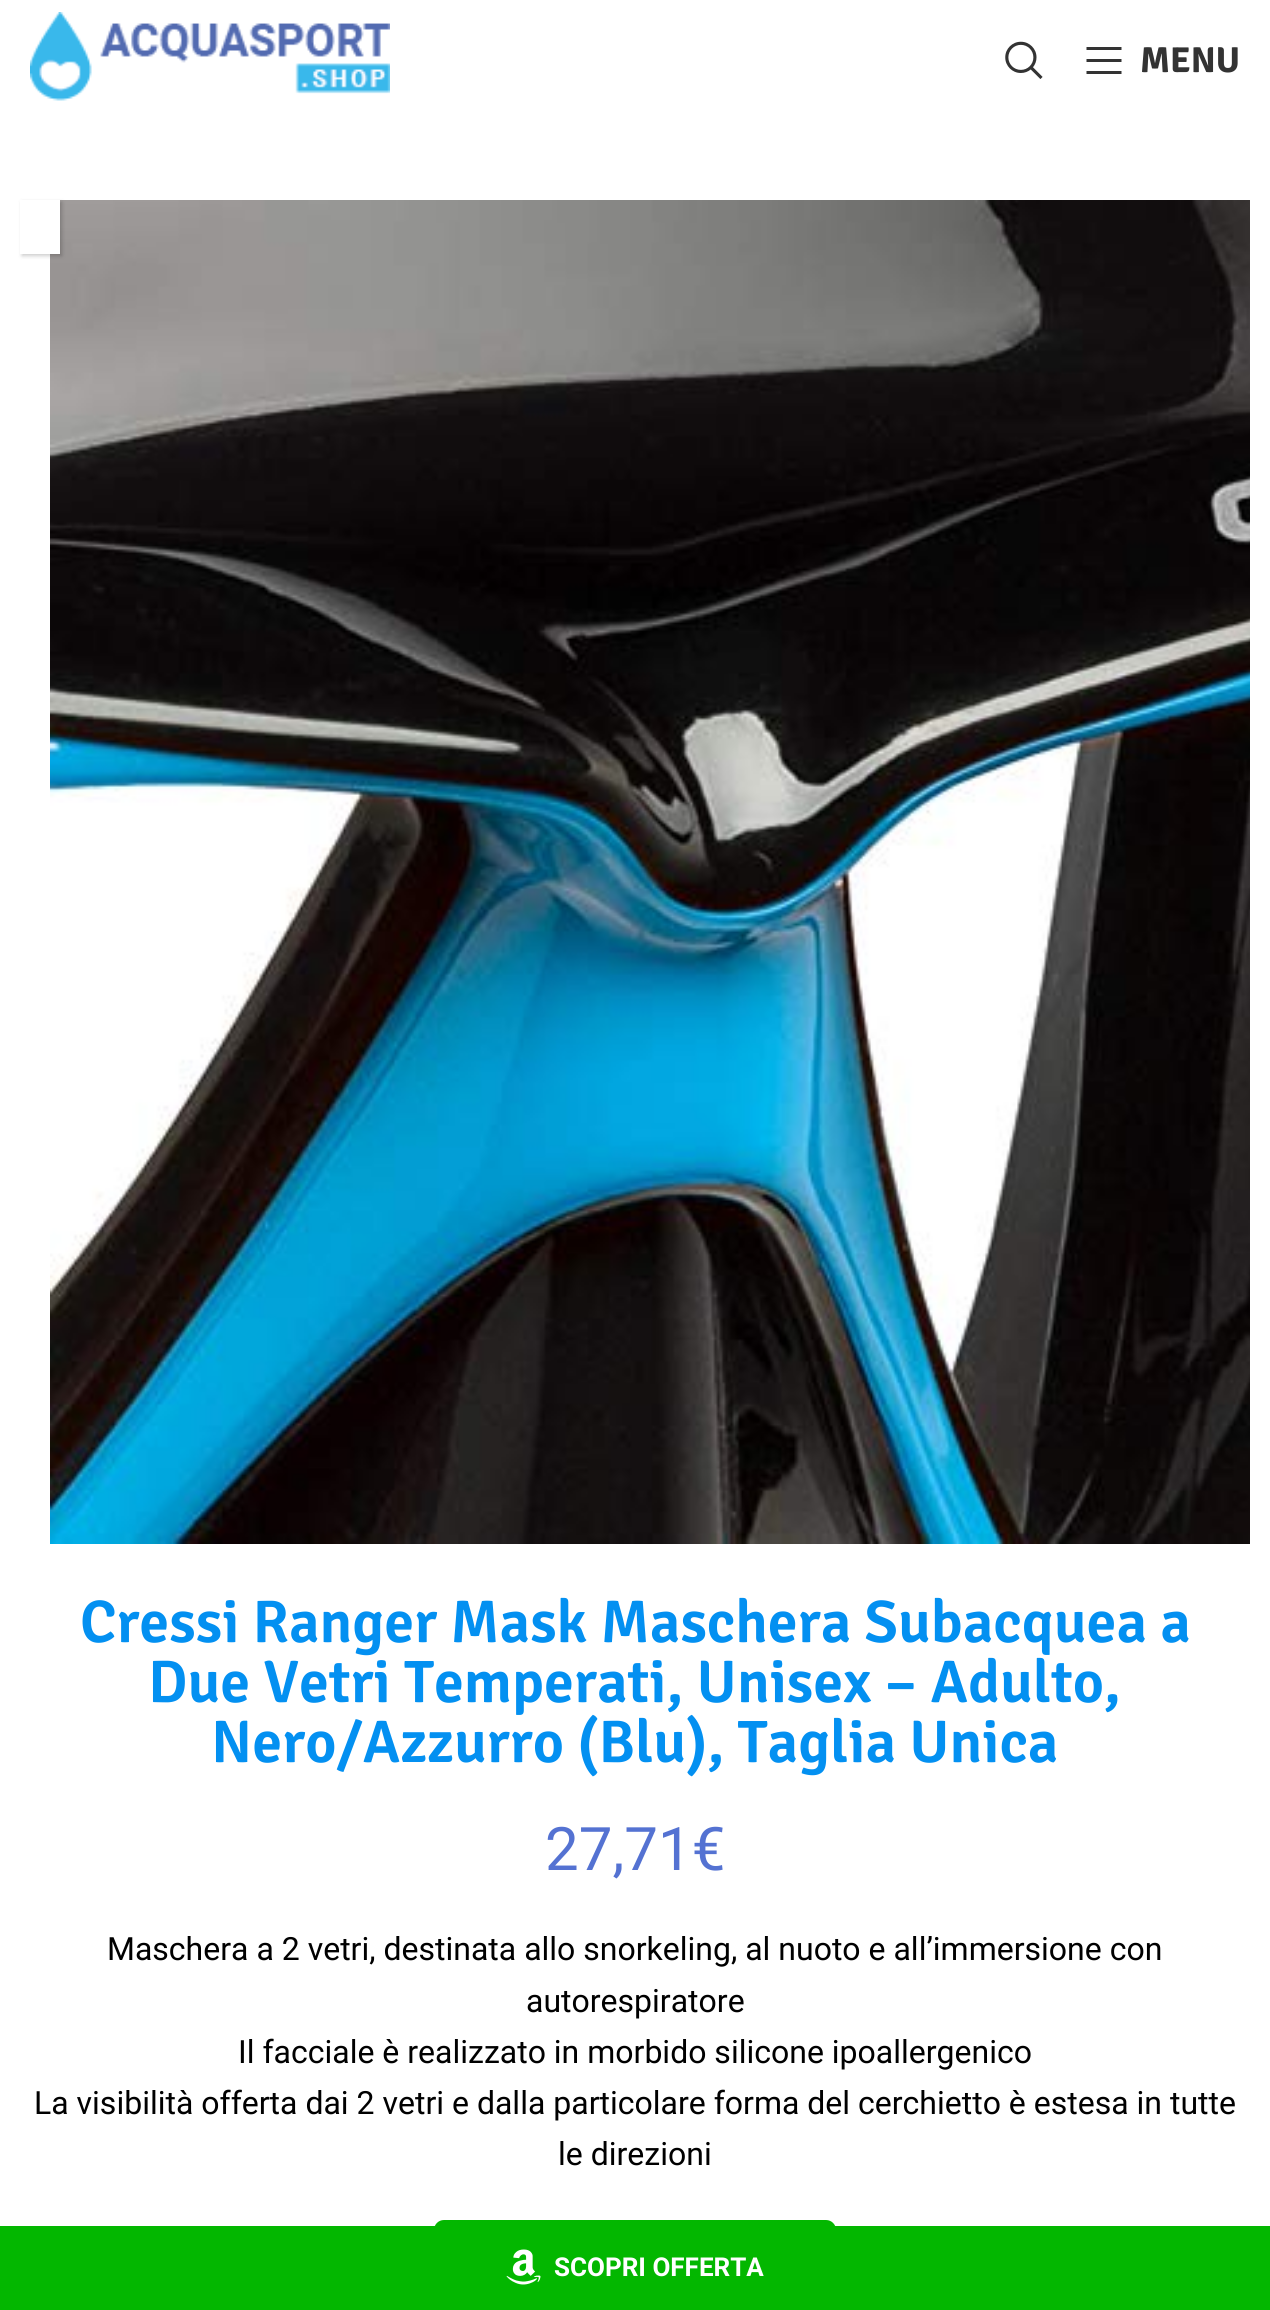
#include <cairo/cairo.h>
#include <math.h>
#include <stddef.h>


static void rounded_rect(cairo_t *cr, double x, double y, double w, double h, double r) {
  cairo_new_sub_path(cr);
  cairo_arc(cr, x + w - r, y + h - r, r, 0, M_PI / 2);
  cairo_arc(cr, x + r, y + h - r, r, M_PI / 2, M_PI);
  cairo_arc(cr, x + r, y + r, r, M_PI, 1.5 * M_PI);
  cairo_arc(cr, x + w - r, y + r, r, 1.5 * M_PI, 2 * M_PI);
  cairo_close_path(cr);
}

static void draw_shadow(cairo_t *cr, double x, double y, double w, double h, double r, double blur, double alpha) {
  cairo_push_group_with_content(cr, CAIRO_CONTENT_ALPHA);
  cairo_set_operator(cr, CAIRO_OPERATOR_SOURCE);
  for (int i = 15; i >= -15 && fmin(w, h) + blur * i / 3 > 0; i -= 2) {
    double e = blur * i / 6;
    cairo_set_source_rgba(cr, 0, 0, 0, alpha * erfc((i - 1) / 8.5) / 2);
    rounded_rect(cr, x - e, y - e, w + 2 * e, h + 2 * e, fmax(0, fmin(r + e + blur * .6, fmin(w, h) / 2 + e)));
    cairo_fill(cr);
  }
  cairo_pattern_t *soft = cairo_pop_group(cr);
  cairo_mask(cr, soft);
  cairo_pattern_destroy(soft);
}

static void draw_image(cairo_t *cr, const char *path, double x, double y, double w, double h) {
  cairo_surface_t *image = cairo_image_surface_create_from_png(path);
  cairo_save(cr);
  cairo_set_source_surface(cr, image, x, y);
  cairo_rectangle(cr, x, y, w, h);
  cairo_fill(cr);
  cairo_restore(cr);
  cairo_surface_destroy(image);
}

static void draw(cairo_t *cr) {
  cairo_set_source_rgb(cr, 1, 1, 1);
  cairo_paint(cr);
  draw_image(cr, "images/1.png", 30, 12, 360, 89);
  draw_image(cr, "images/2.png", 1005, 41, 38, 38);
  cairo_set_source_rgb(cr, 51 / 255.0, 51 / 255.0, 51 / 255.0);
  cairo_new_path(cr);
  cairo_move_to(cr, 1086.5, 50);
  cairo_line_to(cr, 1121.5, 50);
  cairo_line_to(cr, 1121.5, 47);
  cairo_line_to(cr, 1086.5, 47);
  cairo_close_path(cr);
  cairo_move_to(cr, 1086.5, 62);
  cairo_line_to(cr, 1121.5, 62);
  cairo_line_to(cr, 1121.5, 59);
  cairo_line_to(cr, 1086.5, 59);
  cairo_close_path(cr);
  cairo_move_to(cr, 1086.5, 74);
  cairo_line_to(cr, 1121.5, 74);
  cairo_line_to(cr, 1121.5, 71);
  cairo_line_to(cr, 1086.5, 71);
  cairo_close_path(cr);
  cairo_fill(cr);
  draw_image(cr, "images/3.png", 50, 200, 1200, 1344);
  cairo_set_source_rgb(cr, 0, 0, 0);
  draw_shadow(cr, 22, 202, 40, 54, 0, 2, 0.2);
  cairo_set_source_rgb(cr, 1, 1, 1);
  cairo_rectangle(cr, 20, 200, 40, 54);
  cairo_fill(cr);
  cairo_set_source_rgb(cr, 3 / 255.0, 183 / 255.0, 0);
  rounded_rect(cr, 434, 2220, 402, 84, 10);
  cairo_fill(cr);
  cairo_rectangle(cr, 0, 2226, 1270, 84);
  cairo_fill(cr);
  draw_image(cr, "images/4.png", 506, 2249, 35, 36);
  cairo_select_font_face(cr, "Signika", CAIRO_FONT_SLANT_NORMAL, CAIRO_FONT_WEIGHT_BOLD);
  cairo_set_font_size(cr, 36);
  cairo_set_source_rgb(cr, 51 / 255.0, 51 / 255.0, 51 / 255.0);
  cairo_move_to(cr, 1140, 72);
  cairo_show_text(cr, "MENU");
  cairo_select_font_face(cr, "Signika SemiBold", CAIRO_FONT_SLANT_NORMAL, CAIRO_FONT_WEIGHT_NORMAL);
  cairo_set_font_size(cr, 60);
  cairo_set_source_rgb(cr, 3 / 255.0, 144 / 255.0, 241 / 255.0);
  cairo_move_to(cr, 80, 1642);
  cairo_show_text(cr, "Cressi Ranger Mask Maschera Subacquea a");
  cairo_move_to(cr, 148, 1702);
  cairo_show_text(cr, "Due Vetri Temperati, Unisex – Adulto,");
  cairo_move_to(cr, 211, 1762);
  cairo_show_text(cr, "Nero/Azzurro (Blu), Taglia Unica");
  cairo_select_font_face(cr, "Roboto", CAIRO_FONT_SLANT_NORMAL, CAIRO_FONT_WEIGHT_NORMAL);
  cairo_set_source_rgb(cr, 84 / 255.0, 114 / 255.0, 210 / 255.0);
  cairo_move_to(cr, 545, 1870);
  cairo_show_text(cr, "27,71€");
  cairo_set_font_size(cr, 32);
  cairo_set_source_rgb(cr, 0, 0, 0);
  cairo_move_to(cr, 107, 1960);
  cairo_show_text(cr, "Maschera a 2 vetri, destinata allo snorkeling, al nuoto e all’immersione con");
  cairo_move_to(cr, 526, 2012);
  cairo_show_text(cr, "autorespiratore");
  cairo_move_to(cr, 238, 2063);
  cairo_show_text(cr, "Il facciale è realizzato in morbido silicone ipoallergenico");
  cairo_move_to(cr, 34, 2114);
  cairo_show_text(cr, "La visibilità offerta dai 2 vetri e dalla particolare forma del cerchietto è estesa in tutte");
  cairo_move_to(cr, 558, 2165);
  cairo_show_text(cr, "le direzioni");
  cairo_select_font_face(cr, "Roboto", CAIRO_FONT_SLANT_NORMAL, CAIRO_FONT_WEIGHT_BOLD);
  cairo_set_font_size(cr, 26);
  cairo_set_source_rgb(cr, 1, 1, 1);
  cairo_move_to(cr, 554, 2276);
  cairo_show_text(cr, "SCOPRI OFFERTA");
}

int main(void) {
  cairo_surface_t *surface = cairo_image_surface_create(CAIRO_FORMAT_RGB24, 1270, 2310);
  cairo_t *cr = cairo_create(surface);
  cairo_font_options_t *options = cairo_font_options_create();
  cairo_font_options_set_hint_metrics(options, CAIRO_HINT_METRICS_OFF);
  cairo_font_options_set_hint_style(options, CAIRO_HINT_STYLE_NONE);
  cairo_set_font_options(cr, options);
  cairo_set_miter_limit(cr, 4);
  draw(cr);
  cairo_surface_write_to_png(surface, "out.png");
  cairo_font_options_destroy(options);
  cairo_destroy(cr);
  cairo_surface_destroy(surface);
  return 0;
}
